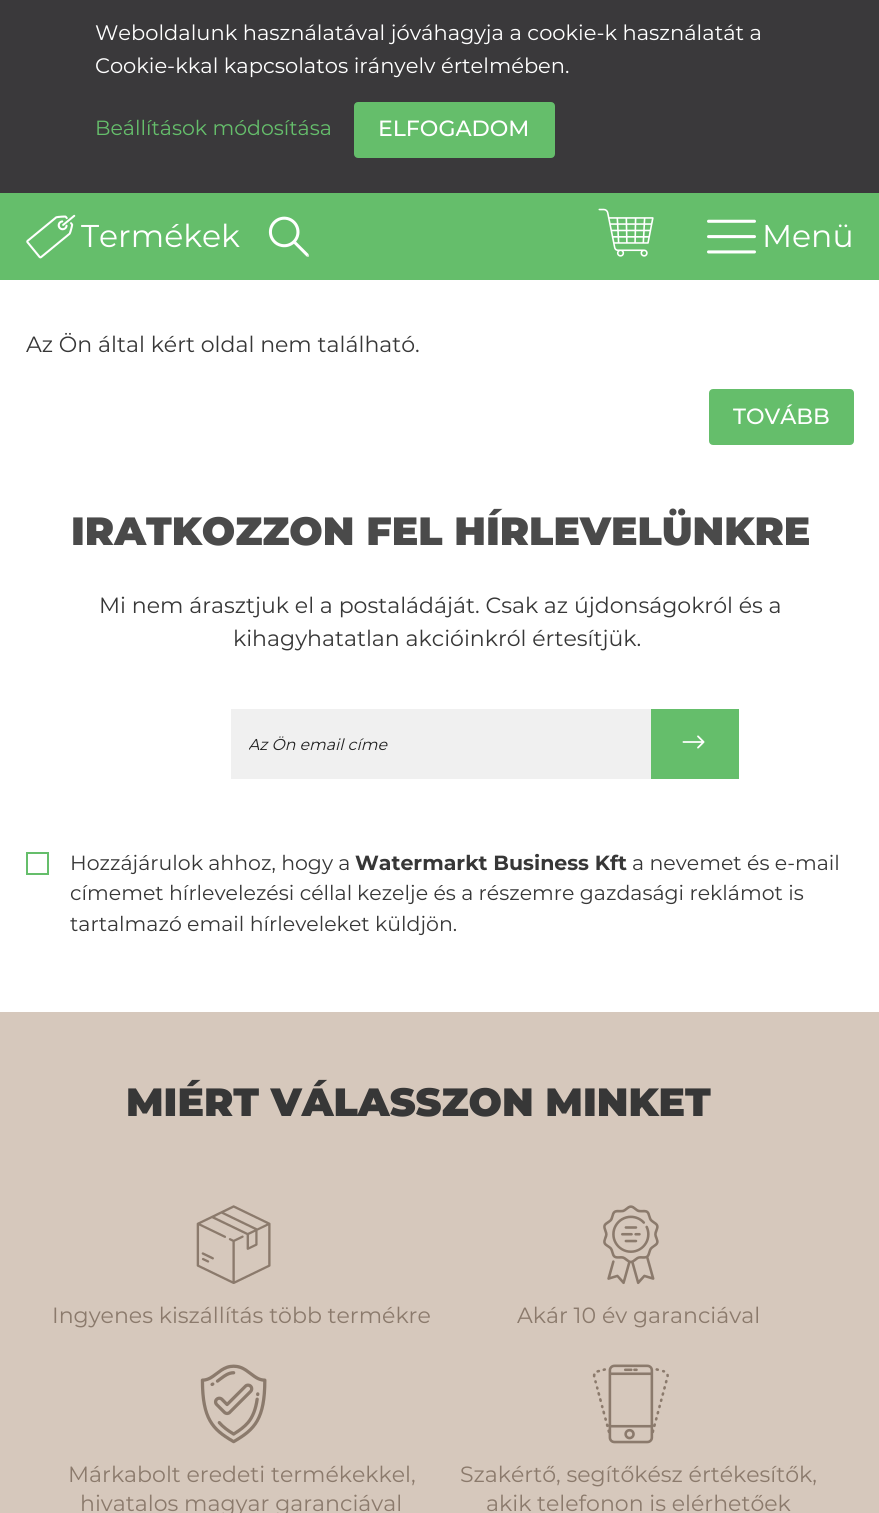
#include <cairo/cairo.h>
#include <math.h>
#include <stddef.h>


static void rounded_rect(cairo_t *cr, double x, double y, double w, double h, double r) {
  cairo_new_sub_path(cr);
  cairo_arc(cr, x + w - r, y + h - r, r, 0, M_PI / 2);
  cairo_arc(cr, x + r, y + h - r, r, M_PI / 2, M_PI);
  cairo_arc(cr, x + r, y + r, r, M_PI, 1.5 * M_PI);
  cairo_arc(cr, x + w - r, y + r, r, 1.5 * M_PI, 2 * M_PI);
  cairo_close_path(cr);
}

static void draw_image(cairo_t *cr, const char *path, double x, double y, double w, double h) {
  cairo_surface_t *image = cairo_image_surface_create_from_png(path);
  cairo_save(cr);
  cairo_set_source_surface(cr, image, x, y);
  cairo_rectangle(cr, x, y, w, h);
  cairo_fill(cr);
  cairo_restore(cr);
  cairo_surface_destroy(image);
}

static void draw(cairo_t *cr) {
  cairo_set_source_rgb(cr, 1, 1, 1);
  cairo_paint(cr);
  cairo_set_source_rgb(cr, 58 / 255.0, 57 / 255.0, 59 / 255.0);
  cairo_rectangle(cr, 0, 0, 879, 193);
  cairo_fill(cr);
  cairo_set_source_rgb(cr, 101 / 255.0, 190 / 255.0, 107 / 255.0);
  rounded_rect(cr, 356, 104, 197, 52, 2);
  cairo_fill_preserve(cr);
  cairo_set_line_width(cr, 4);
  cairo_stroke(cr);
  cairo_rectangle(cr, 0, 193, 879, 87);
  cairo_fill(cr);
  draw_image(cr, "images/1.png", 26, 214, 50, 45);
  draw_image(cr, "images/2.png", 268, 216, 41, 41);
  draw_image(cr, "images/3.png", 598, 208, 56, 49);
  draw_image(cr, "images/4.png", 707, 219, 49, 35);
  rounded_rect(cr, 711, 391, 141, 52, 2);
  cairo_fill_preserve(cr);
  cairo_stroke(cr);
  cairo_set_source_rgb(cr, 240 / 255.0, 240 / 255.0, 240 / 255.0);
  cairo_rectangle(cr, 231, 709, 420, 70);
  cairo_fill(cr);
  cairo_set_source_rgb(cr, 101 / 255.0, 190 / 255.0, 107 / 255.0);
  cairo_rectangle(cr, 651, 709, 88, 70);
  cairo_fill(cr);
  draw_image(cr, "images/5.png", 682, 735, 23, 14);
  cairo_rectangle(cr, 27, 853, 21, 21);
  cairo_set_line_width(cr, 2);
  cairo_stroke(cr);
  cairo_set_source_rgb(cr, 214 / 255.0, 200 / 255.0, 188 / 255.0);
  cairo_rectangle(cr, 0, 1012, 879, 501);
  cairo_fill(cr);
  draw_image(cr, "images/6.png", 196, 1205, 75, 79);
  draw_image(cr, "images/7.png", 603, 1205, 56, 80);
  draw_image(cr, "images/8.png", 200, 1364, 67, 80);
  draw_image(cr, "images/9.png", 592, 1364, 77, 80);
  cairo_select_font_face(cr, "Montserrat", CAIRO_FONT_SLANT_NORMAL, CAIRO_FONT_WEIGHT_NORMAL);
  cairo_set_font_size(cr, 21);
  cairo_set_source_rgb(cr, 1, 1, 1);
  cairo_move_to(cr, 95, 40);
  cairo_show_text(cr, "Weboldalunk használatával jóváhagyja a cookie-k használatát a");
  cairo_move_to(cr, 95, 73);
  cairo_show_text(cr, "Cookie-kkal kapcsolatos irányelv értelmében.");
  cairo_set_font_size(cr, 20.5);
  cairo_set_source_rgb(cr, 101 / 255.0, 190 / 255.0, 107 / 255.0);
  cairo_move_to(cr, 95, 135);
  cairo_show_text(cr, "Beállítások módosítása");
  cairo_select_font_face(cr, "Montserrat Medium", CAIRO_FONT_SLANT_NORMAL, CAIRO_FONT_WEIGHT_NORMAL);
  cairo_set_font_size(cr, 22.05);
  cairo_set_source_rgb(cr, 1, 1, 1);
  cairo_move_to(cr, 378, 136);
  cairo_show_text(cr, "ELFOGADOM");
  cairo_select_font_face(cr, "Montserrat", CAIRO_FONT_SLANT_NORMAL, CAIRO_FONT_WEIGHT_NORMAL);
  cairo_set_font_size(cr, 31.5);
  cairo_move_to(cr, 81, 247);
  cairo_show_text(cr, "Termékek");
  cairo_move_to(cr, 762, 247);
  cairo_show_text(cr, "Menü");
  cairo_set_font_size(cr, 22.05);
  cairo_set_source_rgb(cr, 55 / 255.0, 55 / 255.0, 55 / 255.0);
  cairo_move_to(cr, 26, 352);
  cairo_show_text(cr, "Az Ön által kért oldal nem található.");
  cairo_select_font_face(cr, "Montserrat Medium", CAIRO_FONT_SLANT_NORMAL, CAIRO_FONT_WEIGHT_NORMAL);
  cairo_set_source_rgb(cr, 1, 1, 1);
  cairo_move_to(cr, 733, 424);
  cairo_show_text(cr, "TOVÁBB");
  cairo_select_font_face(cr, "Montserrat Black", CAIRO_FONT_SLANT_NORMAL, CAIRO_FONT_WEIGHT_NORMAL);
  cairo_set_font_size(cr, 39.4);
  cairo_set_source_rgb(cr, 74 / 255.0, 74 / 255.0, 74 / 255.0);
  cairo_move_to(cr, 71, 545);
  cairo_show_text(cr, "IRATKOZZON FEL HÍRLEVELÜNKRE");
  cairo_select_font_face(cr, "Montserrat", CAIRO_FONT_SLANT_NORMAL, CAIRO_FONT_WEIGHT_NORMAL);
  cairo_set_font_size(cr, 22.05);
  cairo_set_source_rgb(cr, 55 / 255.0, 55 / 255.0, 55 / 255.0);
  cairo_move_to(cr, 99, 613);
  cairo_show_text(cr, "Mi nem árasztjuk el a postaládáját. Csak az újdonságokról és a");
  cairo_move_to(cr, 233, 646);
  cairo_show_text(cr, "kihagyhatatlan akcióinkról értesítjük.");
  cairo_save(cr);
  cairo_rectangle(cr, 249, 733, 399, 20);
  cairo_clip(cr);
  cairo_select_font_face(cr, "Montserrat", CAIRO_FONT_SLANT_ITALIC, CAIRO_FONT_WEIGHT_NORMAL);
  cairo_set_font_size(cr, 15.75);
  cairo_set_source_rgb(cr, 34 / 255.0, 34 / 255.0, 34 / 255.0);
  cairo_move_to(cr, 248, 750);
  cairo_show_text(cr, "Az Ön email címe");
  cairo_restore(cr);
  cairo_set_font_size(cr, 20.5);
  cairo_move_to(cr, 70, 870);
  cairo_show_text(cr, "Hozzájárulok ahhoz, hogy a");
  cairo_select_font_face(cr, "Montserrat", CAIRO_FONT_SLANT_NORMAL, CAIRO_FONT_WEIGHT_BOLD);
  cairo_move_to(cr, 355, 870);
  cairo_show_text(cr, "Watermarkt Business Kft");
  cairo_select_font_face(cr, "Montserrat", CAIRO_FONT_SLANT_NORMAL, CAIRO_FONT_WEIGHT_NORMAL);
  cairo_move_to(cr, 632, 870);
  cairo_show_text(cr, "a nevemet és e-mail");
  cairo_move_to(cr, 70, 900);
  cairo_show_text(cr, "címemet hírlevelezési céllal");
  cairo_move_to(cr, 357, 900);
  cairo_show_text(cr, "kezelje és a részemre gazdasági reklámot is");
  cairo_move_to(cr, 70, 931);
  cairo_show_text(cr, "tartalmazó email hírleveleket küldjön.");
  cairo_select_font_face(cr, "Montserrat Black", CAIRO_FONT_SLANT_NORMAL, CAIRO_FONT_WEIGHT_NORMAL);
  cairo_set_font_size(cr, 39.4);
  cairo_move_to(cr, 126, 1116);
  cairo_show_text(cr, "MIÉRT VÁLASSZON MINKET");
  cairo_select_font_face(cr, "Montserrat", CAIRO_FONT_SLANT_NORMAL, CAIRO_FONT_WEIGHT_NORMAL);
  cairo_set_font_size(cr, 22.05);
  cairo_set_source_rgb(cr, 139 / 255.0, 122 / 255.0, 108 / 255.0);
  cairo_move_to(cr, 52, 1323);
  cairo_show_text(cr, "Ingyenes kiszállítás több termékre");
  cairo_move_to(cr, 517, 1323);
  cairo_show_text(cr, "Akár 10 év garanciával");
  cairo_move_to(cr, 68, 1482);
  cairo_show_text(cr, "Márkabolt eredeti termékekkel,");
  cairo_move_to(cr, 80, 1511);
  cairo_show_text(cr, "hivatalos magyar garanciával");
  cairo_move_to(cr, 460, 1482);
  cairo_show_text(cr, "Szakértő, segítőkész értékesítők,");
  cairo_move_to(cr, 486, 1511);
  cairo_show_text(cr, "akik telefonon is elérhetőek");
}

int main(void) {
  cairo_surface_t *surface = cairo_image_surface_create(CAIRO_FORMAT_RGB24, 879, 1513);
  cairo_t *cr = cairo_create(surface);
  cairo_font_options_t *options = cairo_font_options_create();
  cairo_font_options_set_hint_metrics(options, CAIRO_HINT_METRICS_OFF);
  cairo_font_options_set_hint_style(options, CAIRO_HINT_STYLE_NONE);
  cairo_set_font_options(cr, options);
  cairo_set_miter_limit(cr, 4);
  draw(cr);
  cairo_surface_write_to_png(surface, "out.png");
  cairo_font_options_destroy(options);
  cairo_destroy(cr);
  cairo_surface_destroy(surface);
  return 0;
}
